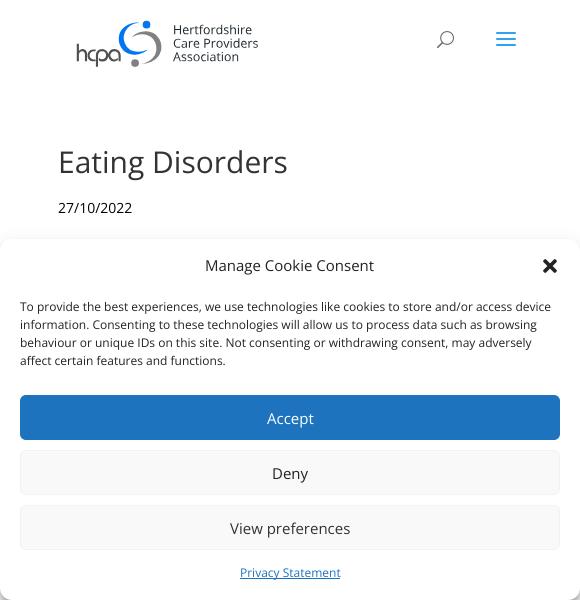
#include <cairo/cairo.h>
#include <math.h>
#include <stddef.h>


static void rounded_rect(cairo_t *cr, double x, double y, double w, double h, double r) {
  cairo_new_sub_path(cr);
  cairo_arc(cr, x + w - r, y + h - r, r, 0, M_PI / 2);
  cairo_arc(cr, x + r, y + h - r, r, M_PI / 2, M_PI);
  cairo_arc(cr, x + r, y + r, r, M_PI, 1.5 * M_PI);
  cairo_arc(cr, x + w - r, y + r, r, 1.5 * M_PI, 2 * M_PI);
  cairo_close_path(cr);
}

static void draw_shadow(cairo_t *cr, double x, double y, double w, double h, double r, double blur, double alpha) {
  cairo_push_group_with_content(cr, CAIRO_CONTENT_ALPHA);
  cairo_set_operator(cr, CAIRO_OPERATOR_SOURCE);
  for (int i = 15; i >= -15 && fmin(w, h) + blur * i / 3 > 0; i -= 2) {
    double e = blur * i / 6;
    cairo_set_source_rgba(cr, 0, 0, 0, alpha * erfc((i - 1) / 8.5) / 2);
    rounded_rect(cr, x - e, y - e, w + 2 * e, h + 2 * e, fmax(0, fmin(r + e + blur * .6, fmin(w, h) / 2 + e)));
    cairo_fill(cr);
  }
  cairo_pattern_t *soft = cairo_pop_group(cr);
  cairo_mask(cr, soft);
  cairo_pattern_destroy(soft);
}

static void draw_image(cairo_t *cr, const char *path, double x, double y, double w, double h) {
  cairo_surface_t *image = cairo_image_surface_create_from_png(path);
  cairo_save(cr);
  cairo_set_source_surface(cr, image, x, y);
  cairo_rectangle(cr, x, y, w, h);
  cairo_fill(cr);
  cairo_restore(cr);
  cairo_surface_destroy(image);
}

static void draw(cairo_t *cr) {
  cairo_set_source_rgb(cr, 1, 1, 1);
  cairo_paint(cr);
  draw_image(cr, "images/1.png", 76, 20, 182, 47);
  draw_image(cr, "images/2.png", 437, 31, 17, 18);
  draw_image(cr, "images/3.png", 496, 32, 20, 14);
  cairo_set_source_rgb(cr, 0, 0, 0);
  draw_shadow(cr, 0, 245, 580, 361, 12, 3, 0.23);
  draw_shadow(cr, 0, 249, 580, 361, 12, 10, 0.19);
  cairo_set_source_rgb(cr, 1, 1, 1);
  rounded_rect(cr, 0, 239, 580, 361, 12);
  cairo_fill(cr);
  draw_image(cr, "images/4.png", 543, 259, 14, 14);
  cairo_set_source_rgb(cr, 30 / 255.0, 115 / 255.0, 190 / 255.0);
  rounded_rect(cr, 20.5, 395.5, 539, 44, 5.5);
  cairo_fill_preserve(cr);
  cairo_set_line_width(cr, 1);
  cairo_stroke(cr);
  cairo_set_source_rgb(cr, 249 / 255.0, 249 / 255.0, 249 / 255.0);
  rounded_rect(cr, 20.5, 450.5, 539, 44, 5.5);
  cairo_fill_preserve(cr);
  cairo_set_source_rgb(cr, 242 / 255.0, 242 / 255.0, 242 / 255.0);
  cairo_stroke(cr);
  cairo_set_source_rgb(cr, 249 / 255.0, 249 / 255.0, 249 / 255.0);
  rounded_rect(cr, 20.5, 505.5, 539, 44, 5.5);
  cairo_fill_preserve(cr);
  cairo_set_source_rgb(cr, 242 / 255.0, 242 / 255.0, 242 / 255.0);
  cairo_stroke(cr);
  cairo_set_source_rgb(cr, 30 / 255.0, 115 / 255.0, 190 / 255.0);
  cairo_rectangle(cr, 240, 578, 100, 1);
  cairo_fill(cr);
  cairo_select_font_face(cr, "Open Sans", CAIRO_FONT_SLANT_NORMAL, CAIRO_FONT_WEIGHT_NORMAL);
  cairo_set_font_size(cr, 30);
  cairo_set_source_rgb(cr, 51 / 255.0, 51 / 255.0, 51 / 255.0);
  cairo_move_to(cr, 58, 173);
  cairo_show_text(cr, "Eating Disorders");
  cairo_set_font_size(cr, 14);
  cairo_set_source_rgb(cr, 0, 0, 0);
  cairo_move_to(cr, 58, 213);
  cairo_show_text(cr, "27/10/2022");
  cairo_set_font_size(cr, 15);
  cairo_set_source_rgb(cr, 34 / 255.0, 34 / 255.0, 34 / 255.0);
  cairo_move_to(cr, 205, 271);
  cairo_show_text(cr, "Manage Cookie Consent");
  cairo_set_font_size(cr, 12);
  cairo_move_to(cr, 20, 311);
  cairo_show_text(cr, "To provide the best experiences, we use technologies like cookies to store and/or access device");
  cairo_move_to(cr, 20, 329);
  cairo_show_text(cr, "information. Consenting to these technologies will allow us to process data such as browsing");
  cairo_move_to(cr, 20, 347);
  cairo_show_text(cr, "behaviour or unique IDs on this site. Not consenting or withdrawing consent, may adversely");
  cairo_move_to(cr, 20, 365);
  cairo_show_text(cr, "affect certain features and functions.");
  cairo_set_font_size(cr, 15);
  cairo_set_source_rgb(cr, 1, 1, 1);
  cairo_move_to(cr, 267, 424);
  cairo_show_text(cr, "Accept");
  cairo_set_source_rgb(cr, 34 / 255.0, 34 / 255.0, 34 / 255.0);
  cairo_move_to(cr, 272, 479);
  cairo_show_text(cr, "Deny");
  cairo_set_source_rgb(cr, 51 / 255.0, 51 / 255.0, 51 / 255.0);
  cairo_move_to(cr, 230, 534);
  cairo_show_text(cr, "View preferences");
  cairo_set_font_size(cr, 12);
  cairo_set_source_rgb(cr, 30 / 255.0, 115 / 255.0, 190 / 255.0);
  cairo_move_to(cr, 240, 577);
  cairo_show_text(cr, "Privacy Statement");
}

int main(void) {
  cairo_surface_t *surface = cairo_image_surface_create(CAIRO_FORMAT_RGB24, 580, 600);
  cairo_t *cr = cairo_create(surface);
  cairo_font_options_t *options = cairo_font_options_create();
  cairo_font_options_set_hint_metrics(options, CAIRO_HINT_METRICS_OFF);
  cairo_font_options_set_hint_style(options, CAIRO_HINT_STYLE_NONE);
  cairo_set_font_options(cr, options);
  cairo_set_miter_limit(cr, 4);
  draw(cr);
  cairo_surface_write_to_png(surface, "out.png");
  cairo_font_options_destroy(options);
  cairo_destroy(cr);
  cairo_surface_destroy(surface);
  return 0;
}
